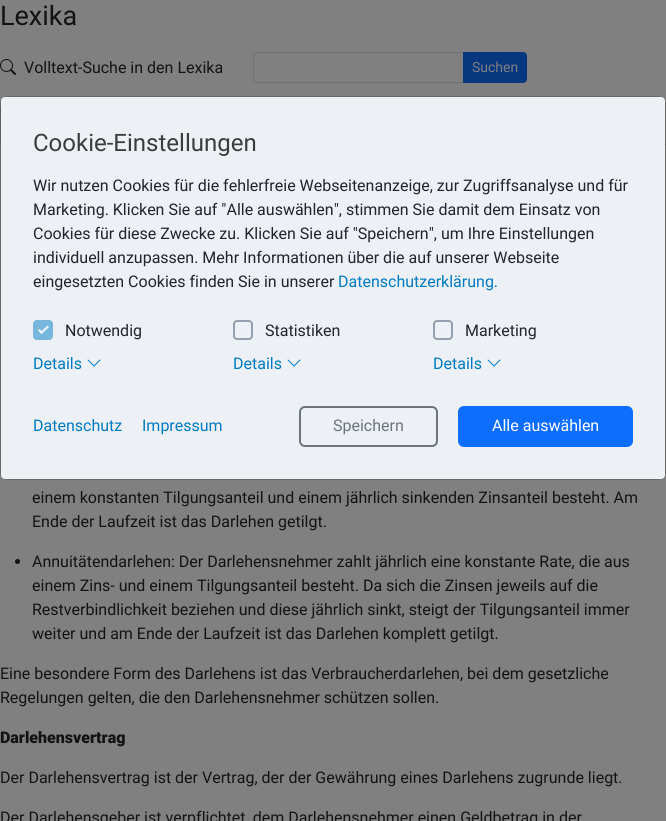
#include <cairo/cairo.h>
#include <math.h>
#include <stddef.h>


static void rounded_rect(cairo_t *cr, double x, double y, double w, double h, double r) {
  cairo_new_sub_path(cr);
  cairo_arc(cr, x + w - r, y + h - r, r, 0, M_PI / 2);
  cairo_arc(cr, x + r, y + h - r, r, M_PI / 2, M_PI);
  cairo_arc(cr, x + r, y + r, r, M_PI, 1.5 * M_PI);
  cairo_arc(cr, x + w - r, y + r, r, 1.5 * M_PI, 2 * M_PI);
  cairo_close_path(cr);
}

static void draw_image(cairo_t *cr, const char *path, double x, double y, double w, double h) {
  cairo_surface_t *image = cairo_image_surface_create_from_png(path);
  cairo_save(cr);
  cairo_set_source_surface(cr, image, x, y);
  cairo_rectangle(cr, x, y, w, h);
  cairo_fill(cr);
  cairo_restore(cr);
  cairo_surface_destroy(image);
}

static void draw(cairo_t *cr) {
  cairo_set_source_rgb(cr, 128 / 255.0, 128 / 255.0, 128 / 255.0);
  cairo_paint(cr);
  draw_image(cr, "images/1.png", 0, 59, 16, 16);
  cairo_new_path(cr);
  cairo_move_to(cr, 257, 52.5);
  cairo_line_to(cr, 463.5, 52.5);
  cairo_line_to(cr, 463.5, 82.5);
  cairo_line_to(cr, 257, 82.5);
  cairo_curve_to(cr, 255, 82.5, 253.5, 81, 253.5, 79);
  cairo_line_to(cr, 253.5, 56);
  cairo_curve_to(cr, 253.5, 54, 255, 52.5, 257, 52.5);
  cairo_close_path(cr);
  cairo_set_source_rgb(cr, 111 / 255.0, 113 / 255.0, 115 / 255.0);
  cairo_set_line_width(cr, 1);
  cairo_stroke(cr);
  cairo_set_source_rgb(cr, 7 / 255.0, 55 / 255.0, 127 / 255.0);
  cairo_new_path(cr);
  cairo_move_to(cr, 463.5, 52.5);
  cairo_line_to(cr, 523, 52.5);
  cairo_curve_to(cr, 525, 52.5, 526.5, 54, 526.5, 56);
  cairo_line_to(cr, 526.5, 79);
  cairo_curve_to(cr, 526.5, 81, 525, 82.5, 523, 82.5);
  cairo_line_to(cr, 463.5, 82.5);
  cairo_close_path(cr);
  cairo_fill_preserve(cr);
  cairo_stroke(cr);
  cairo_set_source_rgb(cr, 111 / 255.0, 113 / 255.0, 115 / 255.0);
  cairo_rectangle(cr, 665, 144, 1, 1);
  cairo_fill(cr);
  cairo_new_path(cr);
  cairo_move_to(cr, 0, 145);
  cairo_line_to(cr, 1, 144);
  cairo_line_to(cr, 1, 109);
  cairo_curve_to(cr, 1, 108, 2, 106, 2, 105);
  cairo_curve_to(cr, 1, 106, 0, 108, 0, 109);
  cairo_close_path(cr);
  cairo_fill(cr);
  cairo_set_source_rgb(cr, 17 / 255.0, 19 / 255.0, 21 / 255.0);
  cairo_arc(cr, 17.5, 561.5, 2.5, 0, 2 * M_PI);
  cairo_fill(cr);
  rounded_rect(cr, 0.5, 96.5, 665, 383, 7.5);
  cairo_set_source_rgba(cr, 0, 0, 0, 0.18);
  cairo_stroke(cr);
  cairo_set_source_rgb(cr, 237 / 255.0, 241 / 255.0, 246 / 255.0);
  rounded_rect(cr, 1, 97, 664, 382, 4);
  cairo_fill(cr);
  cairo_set_source_rgb(cr, 119 / 255.0, 182 / 255.0, 221 / 255.0);
  rounded_rect(cr, 33, 320, 20, 20, 4);
  cairo_fill(cr);
  cairo_set_source_rgb(cr, 246 / 255.0, 248 / 255.0, 251 / 255.0);
  cairo_new_path(cr);
  cairo_move_to(cr, 47.5, 325.5);
  cairo_line_to(cr, 49, 327);
  cairo_line_to(cr, 41.5, 334);
  cairo_line_to(cr, 40.5, 332.5);
  cairo_close_path(cr);
  cairo_fill(cr);
  cairo_new_path(cr);
  cairo_move_to(cr, 39.5, 329);
  cairo_line_to(cr, 43, 332.5);
  cairo_line_to(cr, 41.5, 334);
  cairo_line_to(cr, 38, 330.5);
  cairo_close_path(cr);
  cairo_fill(cr);
  rounded_rect(cr, 234, 321, 18, 18, 3);
  cairo_set_source_rgb(cr, 149 / 255.0, 160 / 255.0, 176 / 255.0);
  cairo_set_line_width(cr, 2);
  cairo_stroke(cr);
  rounded_rect(cr, 434, 321, 18, 18, 3);
  cairo_stroke(cr);
  draw_image(cr, "images/2.png", 87, 359, 14, 8);
  draw_image(cr, "images/2.png", 287, 359, 14, 8);
  draw_image(cr, "images/2.png", 487, 359, 14, 8);
  rounded_rect(cr, 300, 407, 137, 39, 5);
  cairo_set_source_rgb(cr, 108 / 255.0, 117 / 255.0, 125 / 255.0);
  cairo_stroke(cr);
  cairo_set_source_rgb(cr, 13 / 255.0, 110 / 255.0, 253 / 255.0);
  rounded_rect(cr, 459, 407, 173, 39, 5);
  cairo_fill_preserve(cr);
  cairo_stroke(cr);
  cairo_select_font_face(cr, "Roboto", CAIRO_FONT_SLANT_NORMAL, CAIRO_FONT_WEIGHT_NORMAL);
  cairo_set_font_size(cr, 27);
  cairo_set_source_rgb(cr, 17 / 255.0, 19 / 255.0, 21 / 255.0);
  cairo_move_to(cr, 0, 25);
  cairo_show_text(cr, "Lexika");
  cairo_set_font_size(cr, 16);
  cairo_move_to(cr, 24, 73);
  cairo_show_text(cr, "Volltext-Suche in den Lexika");
  cairo_set_font_size(cr, 14);
  cairo_set_source_rgb(cr, 128 / 255.0, 128 / 255.0, 128 / 255.0);
  cairo_move_to(cr, 472, 72);
  cairo_show_text(cr, "Suchen");
  cairo_set_font_size(cr, 16);
  cairo_set_source_rgb(cr, 17 / 255.0, 19 / 255.0, 21 / 255.0);
  cairo_move_to(cr, 32, 503);
  cairo_show_text(cr, "einem konstanten Tilgungsanteil und einem jährlich sinkenden Zinsanteil besteht. Am");
  cairo_move_to(cr, 32, 527);
  cairo_show_text(cr, "Ende der Laufzeit ist das Darlehen getilgt.");
  cairo_move_to(cr, 32, 567);
  cairo_show_text(cr, "Annuitätendarlehen: Der Darlehensnehmer zahlt jährlich eine konstante Rate, die aus");
  cairo_move_to(cr, 32, 591);
  cairo_show_text(cr, "einem Zins- und einem Tilgungsanteil besteht. Da sich die Zinsen jeweils auf die");
  cairo_move_to(cr, 32, 615);
  cairo_show_text(cr, "Restverbindlichkeit beziehen und diese jährlich sinkt, steigt der Tilgungsanteil immer");
  cairo_move_to(cr, 32, 639);
  cairo_show_text(cr, "weiter und am Ende der Laufzeit ist das Darlehen komplett getilgt.");
  cairo_move_to(cr, 0, 679);
  cairo_show_text(cr, "Eine besondere Form des Darlehens ist das Verbraucherdarlehen, bei dem gesetzliche");
  cairo_move_to(cr, 0, 703);
  cairo_show_text(cr, "Regelungen gelten, die den Darlehensnehmer schützen sollen.");
  cairo_select_font_face(cr, "Roboto Black", CAIRO_FONT_SLANT_NORMAL, CAIRO_FONT_WEIGHT_NORMAL);
  cairo_move_to(cr, 0, 743);
  cairo_show_text(cr, "Darlehensvertrag");
  cairo_select_font_face(cr, "Roboto", CAIRO_FONT_SLANT_NORMAL, CAIRO_FONT_WEIGHT_NORMAL);
  cairo_move_to(cr, 0, 783);
  cairo_show_text(cr, "Der Darlehensvertrag ist der Vertrag, der der Gewährung eines Darlehens zugrunde liegt.");
  cairo_move_to(cr, 0, 823);
  cairo_show_text(cr, "Der Darlehensgeber ist verpflichtet, dem Darlehensnehmer einen Geldbetrag in der");
  cairo_set_font_size(cr, 24);
  cairo_set_source_rgb(cr, 60 / 255.0, 60 / 255.0, 60 / 255.0);
  cairo_move_to(cr, 33, 151);
  cairo_show_text(cr, "Cookie-Einstellungen");
  cairo_set_font_size(cr, 16);
  cairo_set_source_rgb(cr, 33 / 255.0, 37 / 255.0, 41 / 255.0);
  cairo_move_to(cr, 33, 191);
  cairo_show_text(cr, "Wir nutzen Cookies für die fehlerfreie Webseitenanzeige, zur Zugriffsanalyse und für");
  cairo_move_to(cr, 33, 215);
  cairo_show_text(cr, "Marketing. Klicken Sie auf \"Alle auswählen\", stimmen Sie damit dem Einsatz von");
  cairo_move_to(cr, 33, 239);
  cairo_show_text(cr, "Cookies für diese Zwecke zu. Klicken Sie auf \"Speichern\", um Ihre Einstellungen");
  cairo_move_to(cr, 33, 263);
  cairo_show_text(cr, "individuell anzupassen. Mehr Informationen über die auf unserer Webseite");
  cairo_move_to(cr, 33, 287);
  cairo_show_text(cr, "eingesetzten Cookies finden Sie in unserer");
  cairo_set_source_rgb(cr, 0, 122 / 255.0, 195 / 255.0);
  cairo_move_to(cr, 338, 287);
  cairo_show_text(cr, "Datenschutzerklärung.");
  cairo_set_source_rgb(cr, 33 / 255.0, 37 / 255.0, 41 / 255.0);
  cairo_move_to(cr, 65, 336);
  cairo_show_text(cr, "Notwendig");
  cairo_move_to(cr, 265, 336);
  cairo_show_text(cr, "Statistiken");
  cairo_move_to(cr, 465, 336);
  cairo_show_text(cr, "Marketing");
  cairo_set_source_rgb(cr, 0, 122 / 255.0, 195 / 255.0);
  cairo_move_to(cr, 33, 369);
  cairo_show_text(cr, "Details");
  cairo_move_to(cr, 233, 369);
  cairo_show_text(cr, "Details");
  cairo_move_to(cr, 433, 369);
  cairo_show_text(cr, "Details");
  cairo_move_to(cr, 33, 431);
  cairo_show_text(cr, "Datenschutz");
  cairo_move_to(cr, 142, 431);
  cairo_show_text(cr, "Impressum");
  cairo_set_source_rgb(cr, 108 / 255.0, 117 / 255.0, 125 / 255.0);
  cairo_move_to(cr, 333, 431);
  cairo_show_text(cr, "Speichern");
  cairo_set_source_rgb(cr, 1, 1, 1);
  cairo_move_to(cr, 492, 431);
  cairo_show_text(cr, "Alle auswählen");
}

int main(void) {
  cairo_surface_t *surface = cairo_image_surface_create(CAIRO_FORMAT_RGB24, 666, 821);
  cairo_t *cr = cairo_create(surface);
  cairo_font_options_t *options = cairo_font_options_create();
  cairo_font_options_set_hint_metrics(options, CAIRO_HINT_METRICS_OFF);
  cairo_font_options_set_hint_style(options, CAIRO_HINT_STYLE_NONE);
  cairo_set_font_options(cr, options);
  cairo_set_miter_limit(cr, 4);
  draw(cr);
  cairo_surface_write_to_png(surface, "out.png");
  cairo_font_options_destroy(options);
  cairo_destroy(cr);
  cairo_surface_destroy(surface);
  return 0;
}
